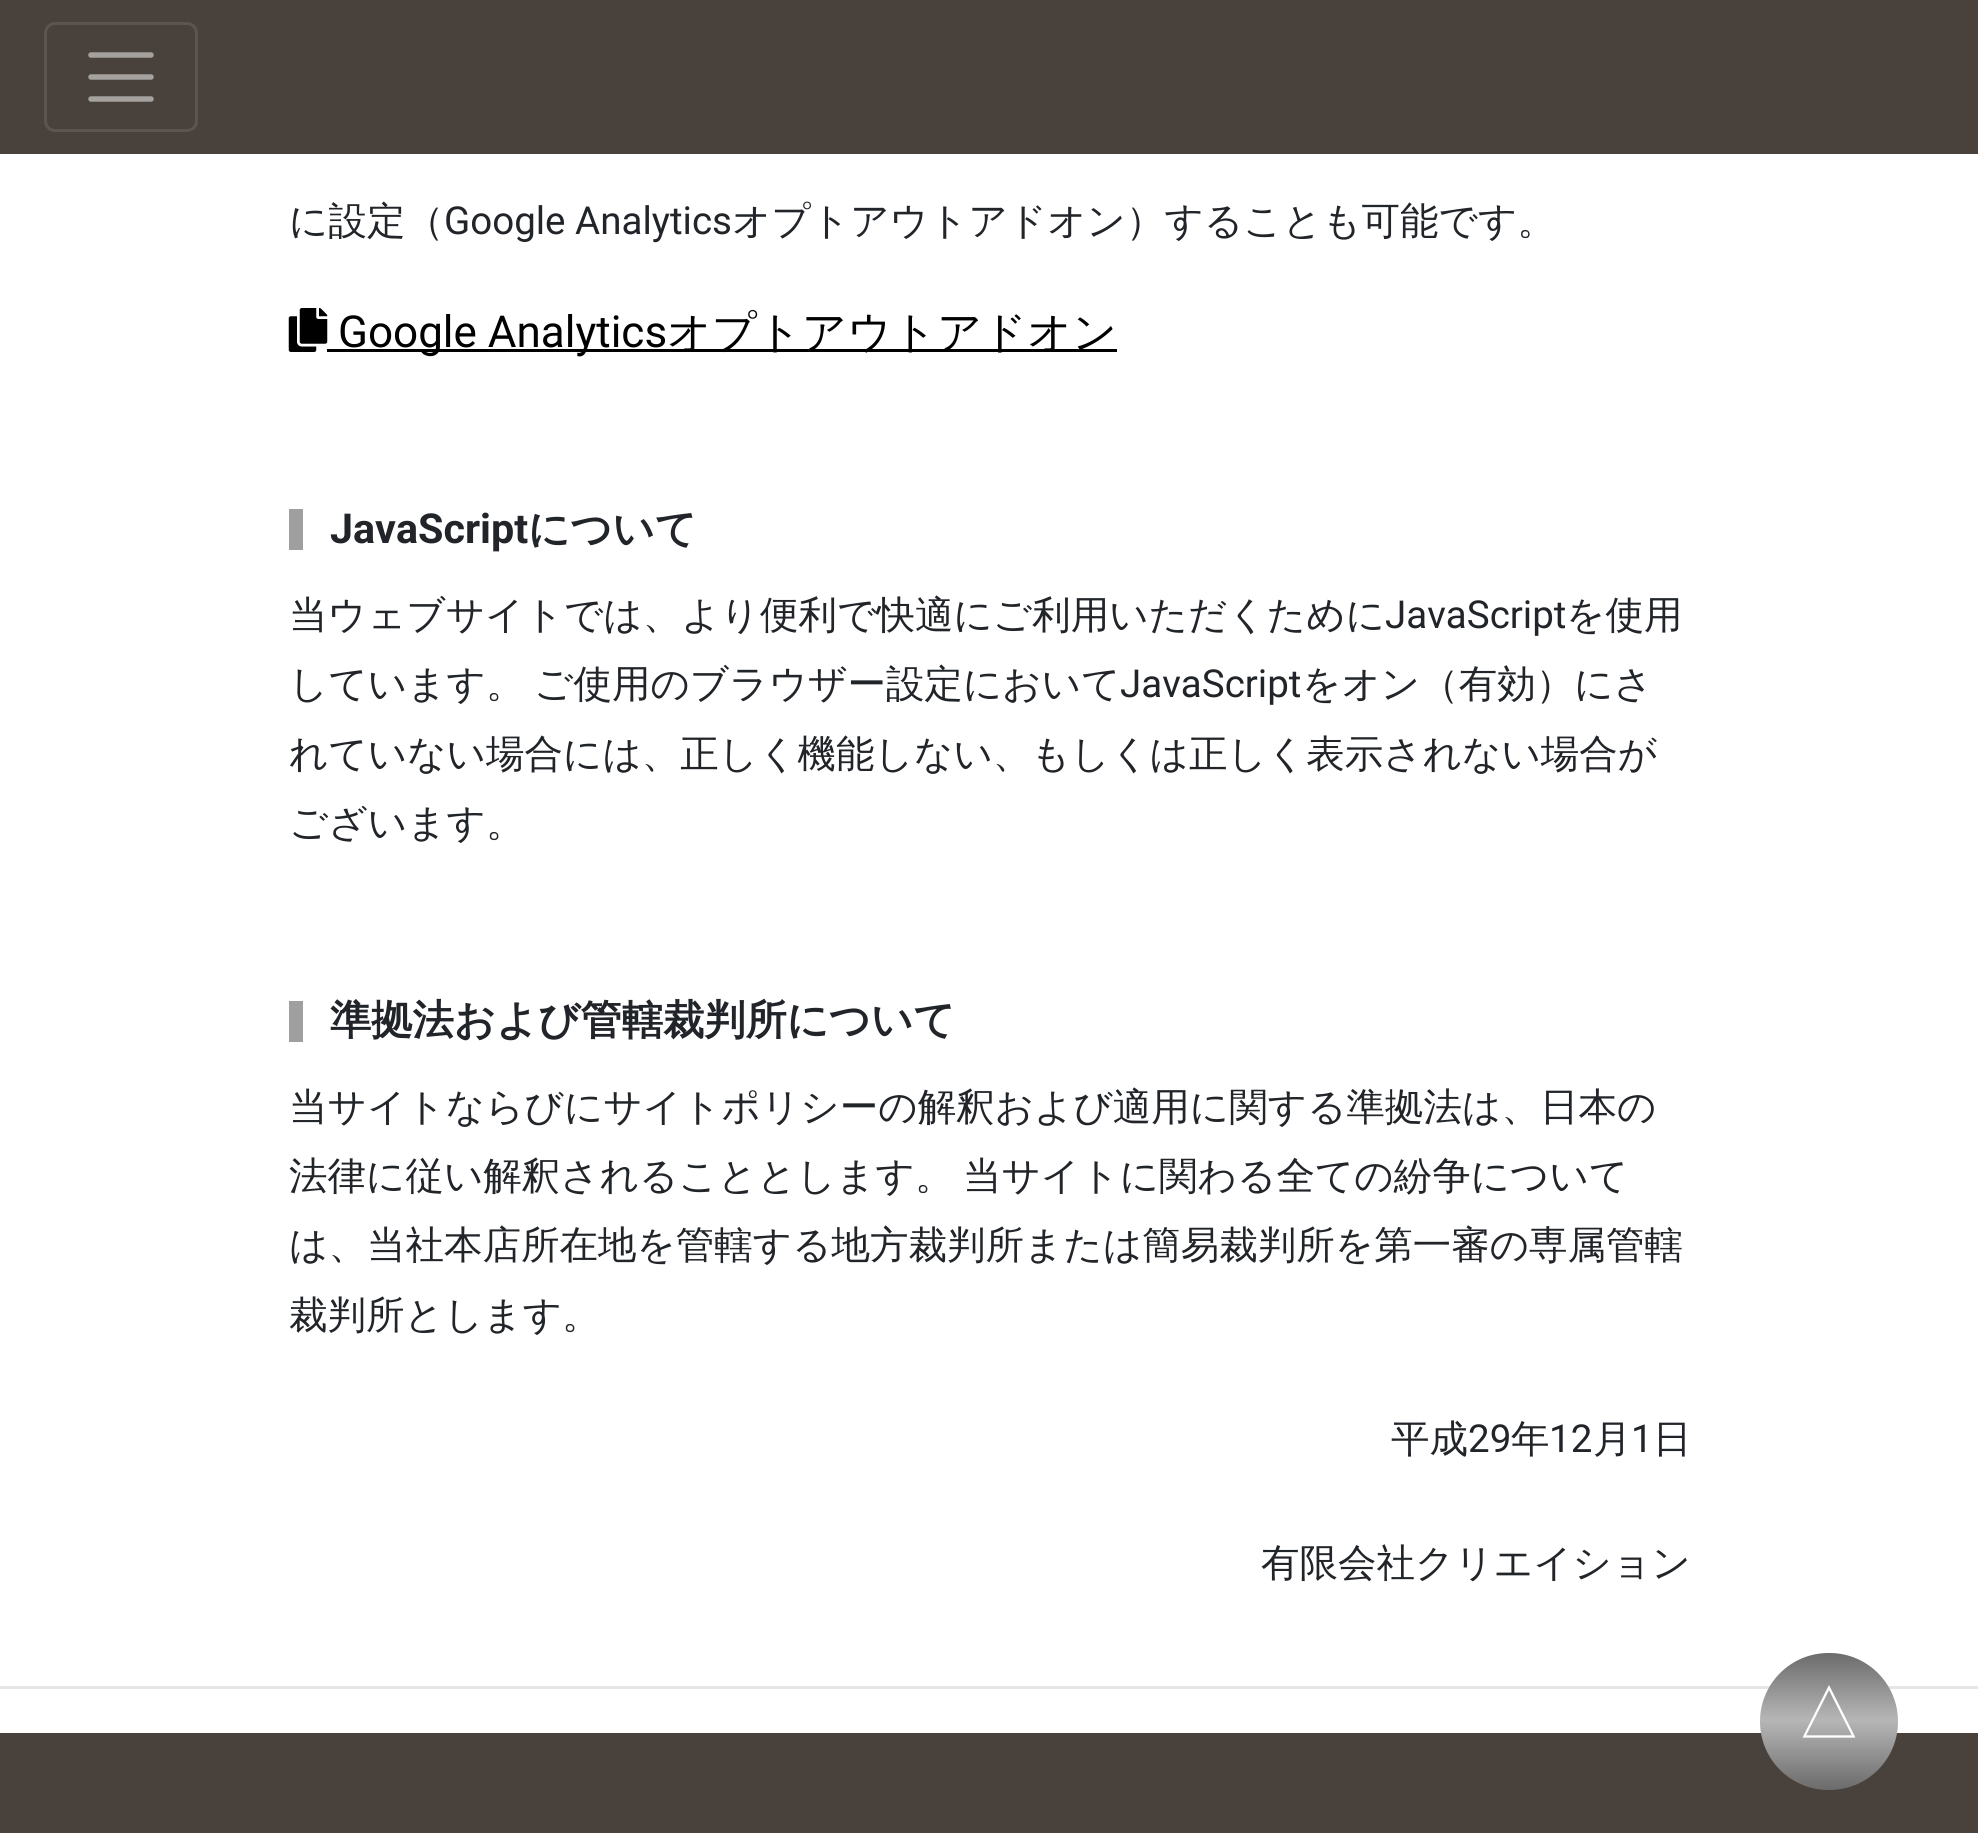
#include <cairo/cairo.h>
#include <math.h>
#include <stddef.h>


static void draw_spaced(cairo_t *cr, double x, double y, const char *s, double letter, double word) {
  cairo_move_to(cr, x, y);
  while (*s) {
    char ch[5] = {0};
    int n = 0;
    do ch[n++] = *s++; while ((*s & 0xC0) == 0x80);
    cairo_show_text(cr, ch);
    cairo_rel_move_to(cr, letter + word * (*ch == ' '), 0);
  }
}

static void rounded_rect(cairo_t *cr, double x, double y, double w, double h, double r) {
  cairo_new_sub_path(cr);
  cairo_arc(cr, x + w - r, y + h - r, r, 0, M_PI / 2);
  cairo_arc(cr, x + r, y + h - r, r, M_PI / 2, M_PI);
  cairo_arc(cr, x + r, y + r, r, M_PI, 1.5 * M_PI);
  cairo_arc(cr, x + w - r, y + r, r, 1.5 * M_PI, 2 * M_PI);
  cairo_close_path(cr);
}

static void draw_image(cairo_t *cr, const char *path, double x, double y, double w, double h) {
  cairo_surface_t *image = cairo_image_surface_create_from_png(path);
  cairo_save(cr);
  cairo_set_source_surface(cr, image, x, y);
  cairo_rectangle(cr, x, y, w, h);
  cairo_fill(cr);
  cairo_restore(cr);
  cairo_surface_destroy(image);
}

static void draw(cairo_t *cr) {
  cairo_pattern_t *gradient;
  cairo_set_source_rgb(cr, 1, 1, 1);
  cairo_paint(cr);
  cairo_set_source_rgb(cr, 73 / 255.0, 66 / 255.0, 60 / 255.0);
  cairo_rectangle(cr, 0, 0, 1978, 154);
  cairo_fill(cr);
  rounded_rect(cr, 45.5, 23.5, 151, 107, 9.5);
  cairo_set_source_rgb(cr, 91 / 255.0, 85 / 255.0, 80 / 255.0);
  cairo_set_line_width(cr, 3);
  cairo_stroke(cr);
  cairo_new_path(cr);
  cairo_move_to(cr, 91, 55);
  cairo_line_to(cr, 151, 55);
  cairo_move_to(cr, 91, 77);
  cairo_line_to(cr, 151, 77);
  cairo_move_to(cr, 91, 99);
  cairo_line_to(cr, 151, 99);
  cairo_set_source_rgb(cr, 164 / 255.0, 161 / 255.0, 158 / 255.0);
  cairo_set_line_width(cr, 5.5);
  cairo_set_line_cap(cr, CAIRO_LINE_CAP_ROUND);
  cairo_stroke(cr);
  draw_image(cr, "images/1.png", 288, 308, 40, 44);
  cairo_set_source_rgb(cr, 0, 0, 0);
  cairo_rectangle(cr, 327, 349, 790, 3);
  cairo_fill(cr);
  cairo_set_source_rgb(cr, 159 / 255.0, 159 / 255.0, 159 / 255.0);
  cairo_rectangle(cr, 289, 509, 14, 41);
  cairo_fill(cr);
  cairo_rectangle(cr, 289, 1001, 14, 41);
  cairo_fill(cr);
  cairo_set_source_rgb(cr, 230 / 255.0, 230 / 255.0, 230 / 255.0);
  cairo_rectangle(cr, 0, 1686, 1978, 3);
  cairo_fill(cr);
  cairo_set_source_rgb(cr, 73 / 255.0, 66 / 255.0, 60 / 255.0);
  cairo_rectangle(cr, 0, 1733, 1978, 100);
  cairo_fill(cr);
  gradient = cairo_pattern_create_linear(1829, 1653, 1829, 1790);
  cairo_pattern_add_color_stop_rgba(gradient, 0, 107 / 255.0, 107 / 255.0, 107 / 255.0, 1);
  cairo_pattern_add_color_stop_rgba(gradient, 0.49, 182 / 255.0, 182 / 255.0, 182 / 255.0, 1);
  cairo_pattern_add_color_stop_rgba(gradient, 1, 107 / 255.0, 107 / 255.0, 107 / 255.0, 1);
  cairo_set_source(cr, gradient);
  cairo_pattern_destroy(gradient);
  rounded_rect(cr, 1760, 1653, 138, 137, 68.5);
  cairo_fill(cr);
  cairo_select_font_face(cr, "WenQuanYi Zen Hei Medium", CAIRO_FONT_SLANT_NORMAL, CAIRO_FONT_WEIGHT_NORMAL);
  cairo_set_font_size(cr, 38.5);
  cairo_set_source_rgb(cr, 33 / 255.0, 37 / 255.0, 41 / 255.0);
  cairo_move_to(cr, 289, 234);
  cairo_show_text(cr, "に設定（");
  cairo_select_font_face(cr, "Roboto", CAIRO_FONT_SLANT_NORMAL, CAIRO_FONT_WEIGHT_NORMAL);
  cairo_move_to(cr, 444, 234);
  cairo_show_text(cr, "Google Analytics");
  cairo_select_font_face(cr, "WenQuanYi Zen Hei Medium", CAIRO_FONT_SLANT_NORMAL, CAIRO_FONT_WEIGHT_NORMAL);
  cairo_move_to(cr, 732, 234);
  cairo_show_text(cr, "オプトアウトアドオン）することも可能です。");
  cairo_select_font_face(cr, "Roboto", CAIRO_FONT_SLANT_NORMAL, CAIRO_FONT_WEIGHT_NORMAL);
  cairo_set_font_size(cr, 44);
  cairo_set_source_rgb(cr, 0, 0, 0);
  cairo_move_to(cr, 338, 347);
  cairo_show_text(cr, "Google Analytics");
  cairo_select_font_face(cr, "WenQuanYi Zen Hei Medium", CAIRO_FONT_SLANT_NORMAL, CAIRO_FONT_WEIGHT_NORMAL);
  cairo_move_to(cr, 667, 347);
  cairo_show_text(cr, "オプトアウトアドオン");
  cairo_select_font_face(cr, "Roboto", CAIRO_FONT_SLANT_NORMAL, CAIRO_FONT_WEIGHT_BOLD);
  cairo_set_font_size(cr, 41.25);
  cairo_set_source_rgb(cr, 33 / 255.0, 37 / 255.0, 41 / 255.0);
  cairo_move_to(cr, 330, 543);
  cairo_show_text(cr, "JavaScript");
  cairo_select_font_face(cr, "WenQuanYi Zen Hei", CAIRO_FONT_SLANT_NORMAL, CAIRO_FONT_WEIGHT_BOLD);
  cairo_move_to(cr, 528, 543);
  cairo_show_text(cr, "について");
  cairo_select_font_face(cr, "WenQuanYi Zen Hei Medium", CAIRO_FONT_SLANT_NORMAL, CAIRO_FONT_WEIGHT_NORMAL);
  cairo_set_font_size(cr, 38.5);
  cairo_move_to(cr, 289, 628);
  cairo_show_text(cr, "当ウェブサイトでは、より便利で快適にご利用いただくために");
  cairo_select_font_face(cr, "Roboto", CAIRO_FONT_SLANT_NORMAL, CAIRO_FONT_WEIGHT_NORMAL);
  cairo_move_to(cr, 1385, 628);
  cairo_show_text(cr, "JavaScript");
  cairo_select_font_face(cr, "WenQuanYi Zen Hei Medium", CAIRO_FONT_SLANT_NORMAL, CAIRO_FONT_WEIGHT_NORMAL);
  cairo_move_to(cr, 1566, 628);
  cairo_show_text(cr, "を使用");
  draw_spaced(cr, 289, 697, "しています。 ご使用のブラウザー設定において", 0, -2);
  cairo_select_font_face(cr, "Roboto", CAIRO_FONT_SLANT_NORMAL, CAIRO_FONT_WEIGHT_NORMAL);
  cairo_move_to(cr, 1120, 697);
  cairo_show_text(cr, "JavaScript");
  cairo_select_font_face(cr, "WenQuanYi Zen Hei Medium", CAIRO_FONT_SLANT_NORMAL, CAIRO_FONT_WEIGHT_NORMAL);
  cairo_move_to(cr, 1302, 697);
  cairo_show_text(cr, "をオン（有効）にさ");
  cairo_move_to(cr, 289, 767);
  cairo_show_text(cr, "れていない場合には、正しく機能しない、もしくは正しく表示されない場合が");
  cairo_move_to(cr, 289, 836);
  cairo_show_text(cr, "ございます。");
  cairo_select_font_face(cr, "WenQuanYi Zen Hei", CAIRO_FONT_SLANT_NORMAL, CAIRO_FONT_WEIGHT_BOLD);
  cairo_set_font_size(cr, 41.25);
  cairo_move_to(cr, 330, 1034);
  cairo_show_text(cr, "準拠法および管轄裁判所について");
  cairo_select_font_face(cr, "WenQuanYi Zen Hei Medium", CAIRO_FONT_SLANT_NORMAL, CAIRO_FONT_WEIGHT_NORMAL);
  cairo_set_font_size(cr, 38.5);
  cairo_move_to(cr, 289, 1120);
  cairo_show_text(cr, "当サイトならびにサイトポリシーの解釈および適用に関する準拠法は、日本の");
  draw_spaced(cr, 289, 1189, "法律に従い解釈されることとします。 当サイトに関わる全ての紛争について", 0, -2);
  cairo_move_to(cr, 289, 1258);
  cairo_show_text(cr, "は、当社本店所在地を管轄する地方裁判所または簡易裁判所を第一審の専属管轄");
  cairo_move_to(cr, 289, 1328);
  cairo_show_text(cr, "裁判所とします。");
  cairo_move_to(cr, 1391, 1452);
  cairo_show_text(cr, "平成");
  cairo_select_font_face(cr, "Roboto", CAIRO_FONT_SLANT_NORMAL, CAIRO_FONT_WEIGHT_NORMAL);
  cairo_move_to(cr, 1468, 1452);
  cairo_show_text(cr, "29");
  cairo_select_font_face(cr, "WenQuanYi Zen Hei Medium", CAIRO_FONT_SLANT_NORMAL, CAIRO_FONT_WEIGHT_NORMAL);
  cairo_move_to(cr, 1511, 1452);
  cairo_show_text(cr, "年");
  cairo_select_font_face(cr, "Roboto", CAIRO_FONT_SLANT_NORMAL, CAIRO_FONT_WEIGHT_NORMAL);
  cairo_move_to(cr, 1549, 1452);
  cairo_show_text(cr, "12");
  cairo_select_font_face(cr, "WenQuanYi Zen Hei Medium", CAIRO_FONT_SLANT_NORMAL, CAIRO_FONT_WEIGHT_NORMAL);
  cairo_move_to(cr, 1593, 1452);
  cairo_show_text(cr, "月");
  cairo_select_font_face(cr, "Roboto", CAIRO_FONT_SLANT_NORMAL, CAIRO_FONT_WEIGHT_NORMAL);
  cairo_move_to(cr, 1631, 1452);
  cairo_show_text(cr, "1");
  cairo_select_font_face(cr, "WenQuanYi Zen Hei Medium", CAIRO_FONT_SLANT_NORMAL, CAIRO_FONT_WEIGHT_NORMAL);
  cairo_move_to(cr, 1653, 1452);
  cairo_show_text(cr, "日");
  cairo_move_to(cr, 1261, 1576);
  cairo_show_text(cr, "有限会社クリエイション");
  cairo_set_font_size(cr, 66);
  cairo_set_source_rgb(cr, 1, 1, 1);
  cairo_move_to(cr, 1796, 1735);
  cairo_show_text(cr, "△");
}

int main(void) {
  cairo_surface_t *surface = cairo_image_surface_create(CAIRO_FORMAT_RGB24, 1978, 1833);
  cairo_t *cr = cairo_create(surface);
  cairo_font_options_t *options = cairo_font_options_create();
  cairo_font_options_set_hint_metrics(options, CAIRO_HINT_METRICS_OFF);
  cairo_font_options_set_hint_style(options, CAIRO_HINT_STYLE_NONE);
  cairo_set_font_options(cr, options);
  cairo_set_miter_limit(cr, 4);
  draw(cr);
  cairo_surface_write_to_png(surface, "out.png");
  cairo_font_options_destroy(options);
  cairo_destroy(cr);
  cairo_surface_destroy(surface);
  return 0;
}
